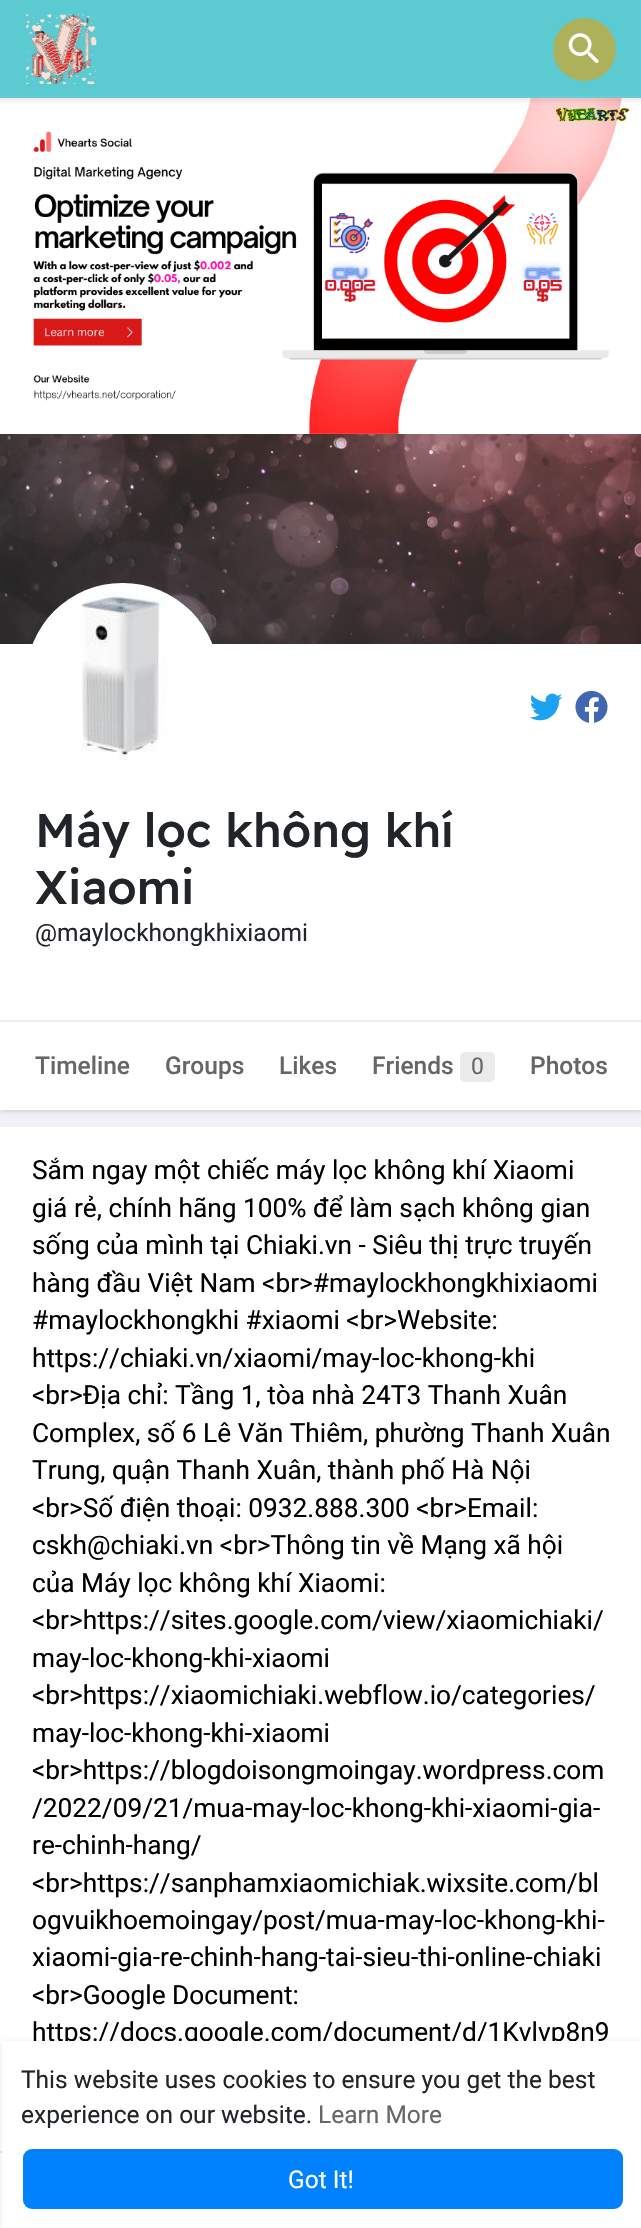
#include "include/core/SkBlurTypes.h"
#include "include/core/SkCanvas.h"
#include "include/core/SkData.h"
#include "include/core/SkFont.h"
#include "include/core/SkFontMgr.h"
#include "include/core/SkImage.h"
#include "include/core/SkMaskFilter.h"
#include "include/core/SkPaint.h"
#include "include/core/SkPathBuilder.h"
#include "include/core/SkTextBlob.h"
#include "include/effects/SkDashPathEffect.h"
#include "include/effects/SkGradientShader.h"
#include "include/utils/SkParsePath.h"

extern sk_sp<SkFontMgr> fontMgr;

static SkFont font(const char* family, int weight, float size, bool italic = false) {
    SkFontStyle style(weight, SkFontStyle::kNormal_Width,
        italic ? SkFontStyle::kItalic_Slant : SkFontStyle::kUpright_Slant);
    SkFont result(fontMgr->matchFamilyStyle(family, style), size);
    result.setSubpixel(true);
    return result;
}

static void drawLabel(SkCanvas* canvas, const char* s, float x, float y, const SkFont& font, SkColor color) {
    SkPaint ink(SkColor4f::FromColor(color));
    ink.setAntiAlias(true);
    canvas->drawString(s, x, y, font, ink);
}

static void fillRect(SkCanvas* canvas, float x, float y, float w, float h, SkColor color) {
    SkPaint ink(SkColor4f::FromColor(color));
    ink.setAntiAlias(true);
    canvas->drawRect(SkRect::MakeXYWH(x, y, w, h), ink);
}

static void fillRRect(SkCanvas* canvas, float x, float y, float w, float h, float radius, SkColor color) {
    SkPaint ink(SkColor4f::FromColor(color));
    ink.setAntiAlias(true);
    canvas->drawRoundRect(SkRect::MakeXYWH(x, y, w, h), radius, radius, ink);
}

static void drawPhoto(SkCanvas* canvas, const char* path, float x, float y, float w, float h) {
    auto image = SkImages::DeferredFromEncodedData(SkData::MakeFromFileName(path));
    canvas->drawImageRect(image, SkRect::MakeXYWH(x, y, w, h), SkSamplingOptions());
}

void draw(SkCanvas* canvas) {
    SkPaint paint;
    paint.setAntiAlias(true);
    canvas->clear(0xFFF0F2F5);
    fillRect(canvas, 0, 0, 641, 98, 0xFF5CCAD1);
    drawPhoto(canvas, "assets/img1.png", 26, 14, 71, 70);
    paint.setColor(0xFFADB15B);
    canvas->drawCircle(584.5f, 49.5f, 31.5f, paint);
    drawPhoto(canvas, "assets/img2.png", 568, 33, 31, 31);
    drawPhoto(canvas, "assets/img4.png", 0, 98, 641, 336);
    drawPhoto(canvas, "assets/img3.png", 0, 96, 641, 7);
    drawPhoto(canvas, "assets/img5.png", 0, 434, 641, 210);
    paint.setColor(0x0F000000);
    paint.setMaskFilter(SkMaskFilter::MakeBlur(kNormal_SkBlurStyle, 2));
    canvas->drawRect(SkRect::MakeXYWH(0, 646, 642, 465), paint);
    paint.setMaskFilter(nullptr);
    paint.setColor(0x1A000000);
    paint.setMaskFilter(SkMaskFilter::MakeBlur(kNormal_SkBlurStyle, 2.5f));
    canvas->drawRect(SkRect::MakeXYWH(0, 646, 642, 465), paint);
    paint.setMaskFilter(nullptr);
    fillRect(canvas, 0, 644, 641, 466, 0xFFFFFFFF);
    fillRRect(canvas, 26, 583, 193, 192, 96, 0xFFFFFFFF);
    drawPhoto(canvas, "assets/img6.png", 81, 592, 86, 169);
    drawPhoto(canvas, "assets/img7.png", 529, 693, 34, 28);
    drawPhoto(canvas, "assets/img8.png", 575, 690, 33, 33);
    SkFont font1 = font("Readex Pro", 500, 47.25f);
    drawLabel(canvas, "Máy lọc không khí", 35, 847, font1, 0xFF212529);
    drawLabel(canvas, "Xiaomi", 35, 904, font1, 0xFF212529);
    SkFont font2 = font("Roboto", 400, 24.5f);
    drawLabel(canvas, "@maylockhongkhixiaomi", 35, 941, font2, 0xFF212529);
    fillRect(canvas, 0, 1020, 641, 2, 0xFFEEEEEE);
    SkFont font3 = font("Roboto", 500, 24.5f);
    drawLabel(canvas, "Timeline", 35, 1074, font3, 0xFF666666);
    drawLabel(canvas, "Groups", 165, 1074, font3, 0xFF666666);
    drawLabel(canvas, "Likes", 279, 1074, font3, 0xFF666666);
    drawLabel(canvas, "Friends", 372, 1074, font3, 0xFF666666);
    fillRRect(canvas, 460, 1052, 35, 30, 5, 0xFFEBEBEB);
    SkFont font4 = font("Roboto", 400, 23);
    drawLabel(canvas, "0", 471, 1074, font4, 0xFF666666);
    drawLabel(canvas, "Photos", 530, 1074, font3, 0xFF666666);
    fillRect(canvas, 0, 1127, 641, 1024, 0xFFFFFFFF);
    SkFont font5 = font("Roboto", 400, 26.25f);
    drawLabel(canvas, "Sắm ngay một chiếc máy lọc không khí Xiaomi", 32, 1179, font5, 0xFF000000);
    drawLabel(canvas, "giá rẻ, chính hãng 100% để làm sạch không gian", 32, 1217, font5, 0xFF000000);
    drawLabel(canvas, "sống của mình tại Chiaki.vn - Siêu thị trực truyến", 32, 1254, font5, 0xFF000000);
    drawLabel(canvas, "hàng đầu Việt Nam <br>#maylockhongkhixiaomi", 32, 1292, font5, 0xFF000000);
    drawLabel(canvas, "#maylockhongkhi #xiaomi <br>Website:", 32, 1329, font5, 0xFF000000);
    drawLabel(canvas, "https://chiaki.vn/xiaomi/may-loc-khong-khi", 32, 1367, font5, 0xFF000000);
    drawLabel(canvas, "<br>Địa chỉ: Tầng 1, tòa nhà 24T3 Thanh Xuân", 32, 1404, font5, 0xFF000000);
    drawLabel(canvas, "Complex, số 6 Lê Văn Thiêm, phường Thanh Xuân", 32, 1442, font5, 0xFF000000);
    drawLabel(canvas, "Trung, quận Thanh Xuân, thành phố Hà Nội", 32, 1479, font5, 0xFF000000);
    drawLabel(canvas, "<br>Số điện thoại: 0932.888.300 <br>Email:", 32, 1517, font5, 0xFF000000);
    drawLabel(canvas, "cskh@chiaki.vn <br>Thông tin về Mạng xã hội", 32, 1554, font5, 0xFF000000);
    drawLabel(canvas, "của Máy lọc không khí Xiaomi:", 32, 1592, font5, 0xFF000000);
    drawLabel(canvas, "<br>https://sites.google.com/view/xiaomichiaki/", 32, 1629, font5, 0xFF000000);
    drawLabel(canvas, "may-loc-khong-khi-xiaomi", 32, 1667, font5, 0xFF000000);
    drawLabel(canvas, "<br>https://xiaomichiaki.webflow.io/categories/", 32, 1704, font5, 0xFF000000);
    drawLabel(canvas, "may-loc-khong-khi-xiaomi", 32, 1742, font5, 0xFF000000);
    drawLabel(canvas, "<br>https://blogdoisongmoingay.wordpress.com", 32, 1779, font5, 0xFF000000);
    drawLabel(canvas, "/2022/09/21/mua-may-loc-khong-khi-xiaomi-gia-", 32, 1817, font5, 0xFF000000);
    drawLabel(canvas, "re-chinh-hang/", 32, 1854, font5, 0xFF000000);
    drawLabel(canvas, "<br>https://sanphamxiaomichiak.wixsite.com/bl", 32, 1892, font5, 0xFF000000);
    drawLabel(canvas, "ogvuikhoemoingay/post/mua-may-loc-khong-khi-", 32, 1929, font5, 0xFF000000);
    drawLabel(canvas, "xiaomi-gia-re-chinh-hang-tai-sieu-thi-online-chiaki", 32, 1966, font5, 0xFF000000);
    drawLabel(canvas, "<br>Google Document:", 32, 2004, font5, 0xFF000000);
    drawLabel(canvas, "https://docs.google.com/document/d/1Kvlvp8n9", 32, 2041, font5, 0xFF000000);
    fillRect(canvas, 0, 2153, 2, 75, 0xFFFFFFFF);
    fillRect(canvas, 0, 2151, 2, 2, 0xFFE6E6E6);
    paint.setMaskFilter(SkMaskFilter::MakeBlur(kNormal_SkBlurStyle, 2.5f));
    canvas->drawRect(SkRect::MakeXYWH(2, 2042, 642, 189), paint);
    paint.setMaskFilter(nullptr);
    fillRect(canvas, 2, 2041, 639, 187, 0xFFFFFFFF);
    drawLabel(canvas, "This website uses cookies to ensure you get the best", 21, 2088, font2, 0xFF212529);
    drawLabel(canvas, "experience on our website.", 21, 2123, font2, 0xFF212529);
    drawLabel(canvas, "Learn More", 318, 2123, font2, 0xFF666666);
    fillRRect(canvas, 23, 2149, 600, 60, 9, 0xFF0082FF);
    drawLabel(canvas, "Got It!", 288, 2188, font2, 0xFFFFFFFF);
}
